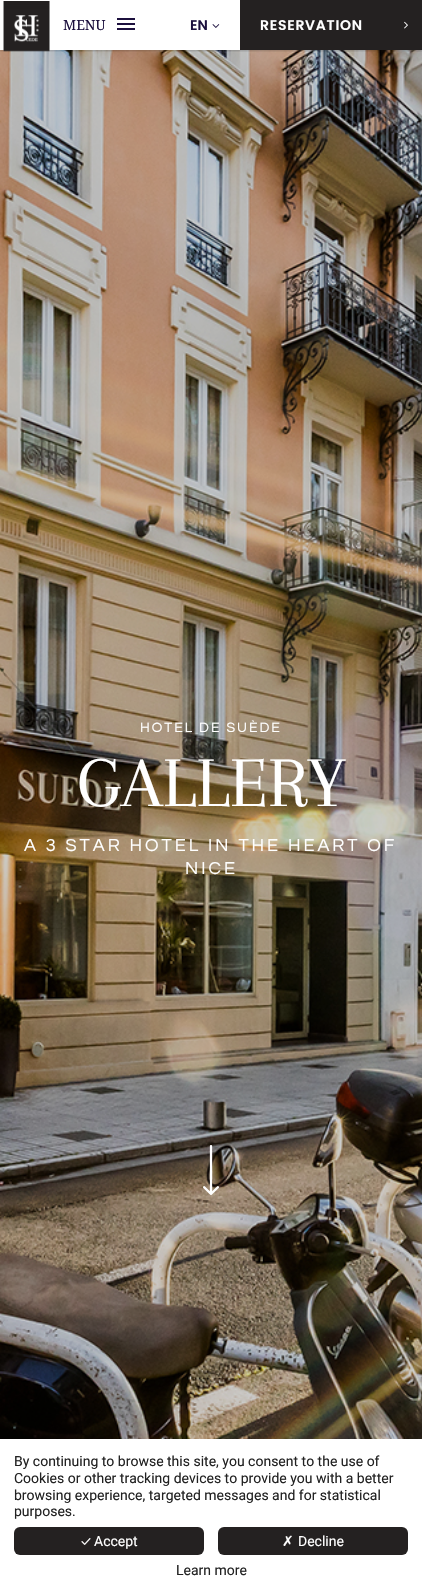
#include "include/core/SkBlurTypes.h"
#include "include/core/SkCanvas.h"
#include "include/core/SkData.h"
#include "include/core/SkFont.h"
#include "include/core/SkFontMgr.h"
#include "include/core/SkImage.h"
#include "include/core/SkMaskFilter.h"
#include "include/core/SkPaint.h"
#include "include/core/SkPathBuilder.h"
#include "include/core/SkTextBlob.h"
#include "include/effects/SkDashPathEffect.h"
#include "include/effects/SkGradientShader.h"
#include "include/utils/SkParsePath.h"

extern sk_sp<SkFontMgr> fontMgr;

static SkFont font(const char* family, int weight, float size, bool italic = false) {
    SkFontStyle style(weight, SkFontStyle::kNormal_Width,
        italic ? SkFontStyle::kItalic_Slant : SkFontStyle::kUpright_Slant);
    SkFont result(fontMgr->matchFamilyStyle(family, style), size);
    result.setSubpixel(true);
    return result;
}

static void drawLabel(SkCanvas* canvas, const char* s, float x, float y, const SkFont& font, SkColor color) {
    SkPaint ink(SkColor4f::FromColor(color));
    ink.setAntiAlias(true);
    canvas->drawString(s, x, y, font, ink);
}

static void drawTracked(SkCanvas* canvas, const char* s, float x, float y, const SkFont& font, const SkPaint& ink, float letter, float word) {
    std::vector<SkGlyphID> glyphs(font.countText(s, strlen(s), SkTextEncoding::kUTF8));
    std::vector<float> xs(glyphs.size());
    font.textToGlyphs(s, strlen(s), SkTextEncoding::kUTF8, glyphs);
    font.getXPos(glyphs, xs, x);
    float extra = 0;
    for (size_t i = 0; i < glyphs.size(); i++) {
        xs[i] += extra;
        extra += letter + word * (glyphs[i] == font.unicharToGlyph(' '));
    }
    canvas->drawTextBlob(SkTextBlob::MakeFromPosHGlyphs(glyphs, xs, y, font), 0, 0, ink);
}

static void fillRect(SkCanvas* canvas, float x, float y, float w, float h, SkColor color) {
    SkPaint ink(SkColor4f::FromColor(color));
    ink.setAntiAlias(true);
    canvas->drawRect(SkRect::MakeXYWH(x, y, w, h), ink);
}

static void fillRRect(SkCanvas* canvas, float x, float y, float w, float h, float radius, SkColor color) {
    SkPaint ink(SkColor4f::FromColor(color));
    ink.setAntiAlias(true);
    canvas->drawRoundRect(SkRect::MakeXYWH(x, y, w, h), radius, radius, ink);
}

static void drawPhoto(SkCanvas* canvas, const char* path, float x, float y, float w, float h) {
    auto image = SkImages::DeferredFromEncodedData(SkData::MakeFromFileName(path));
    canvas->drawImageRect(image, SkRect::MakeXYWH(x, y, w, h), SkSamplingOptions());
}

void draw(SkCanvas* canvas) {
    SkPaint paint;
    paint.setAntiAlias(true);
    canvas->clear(0xFFFFFFFF);
    drawPhoto(canvas, "assets/img4.png", 0, 50, 422, 1389);
    canvas->save();
    canvas->clipRect(SkRect::MakeXYWH(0, 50, 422, 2));
    paint.setColor(0x33000000);
    paint.setMaskFilter(SkMaskFilter::MakeBlur(kNormal_SkBlurStyle, 1));
    canvas->drawRect(SkRect::MakeXYWH(0, 1, 422, 50), paint);
    paint.setMaskFilter(nullptr);
    canvas->restore();
    drawPhoto(canvas, "assets/img1.png", 3, 1, 47, 51);
    SkFont font1 = font("Noto Serif", 400, 14);
    drawLabel(canvas, "MENU", 63, 30, font1, 0xFF1C103E);
    fillRect(canvas, 117, 23, 18, 2, 0xFF1C103E);
    fillRect(canvas, 117, 18, 18, 2, 0xFF1C103E);
    fillRect(canvas, 117, 28, 18, 2, 0xFF1C103E);
    SkFont font2 = font("Poppins", 600, 14);
    drawLabel(canvas, "EN", 190, 30, font2, 0xFF1C103E);
    drawPhoto(canvas, "assets/img2.png", 212, 24, 8, 4);
    fillRect(canvas, 240, 0, 182, 50, 0xFF242121);
    paint.setColor(0xFFFFFFFF);
    drawTracked(canvas, "RESERVATION", 260, 30, font2, paint, 0.75f, 0);
    drawPhoto(canvas, "assets/img3.png", 404, 21, 4, 8);
    SkFont font3 = font("Questrial", 400, 14);
    drawTracked(canvas, "HOTEL DE SUÈDE", 140, 732, font3, paint, 2, 0);
    SkFont font4 = font("Arapey", 400, 74);
    drawLabel(canvas, "GALLERY", 77, 806, font4, 0xFFFFFFFF);
    SkFont font5 = font("Questrial", 400, 18);
    drawTracked(canvas, "A 3 STAR HOTEL IN THE HEART OF", 24, 851, font5, paint, 3, 0);
    drawTracked(canvas, "NICE", 185, 874, font5, paint, 3, 0);
    drawPhoto(canvas, "assets/img5.png", 203, 1145, 16, 50);
    SkFont font6 = font("Roboto", 400, 14);
    drawLabel(canvas, "By continuing to browse this site, you consent to the use of", 14, 1466, font6, 0xFF222222);
    drawLabel(canvas, "Cookies or other tracking devices to provide you with a better", 14, 1483, font6, 0xFF222222);
    drawLabel(canvas, "browsing experience, targeted messages and for statistical", 14, 1500, font6, 0xFF222222);
    drawLabel(canvas, "purposes.", 14, 1516, font6, 0xFF222222);
    fillRRect(canvas, 14, 1527, 190, 28, 6, 0xFF242121);
    SkFont font7 = font("Ubuntu", 400, 14);
    drawLabel(canvas, "✓", 81, 1546, font7, 0xFFFFFFFF);
    drawLabel(canvas, "Accept", 94, 1546, font6, 0xFFFFFFFF);
    fillRRect(canvas, 218, 1527, 190, 28, 6, 0xFF242121);
    SkFont font8 = font("DejaVu Sans", 400, 14);
    drawLabel(canvas, "✗", 282, 1546, font8, 0xFFFFFFFF);
    drawLabel(canvas, "Decline", 298, 1546, font6, 0xFFFFFFFF);
    drawLabel(canvas, "Learn more", 176, 1575, font6, 0xFF222222);
}
